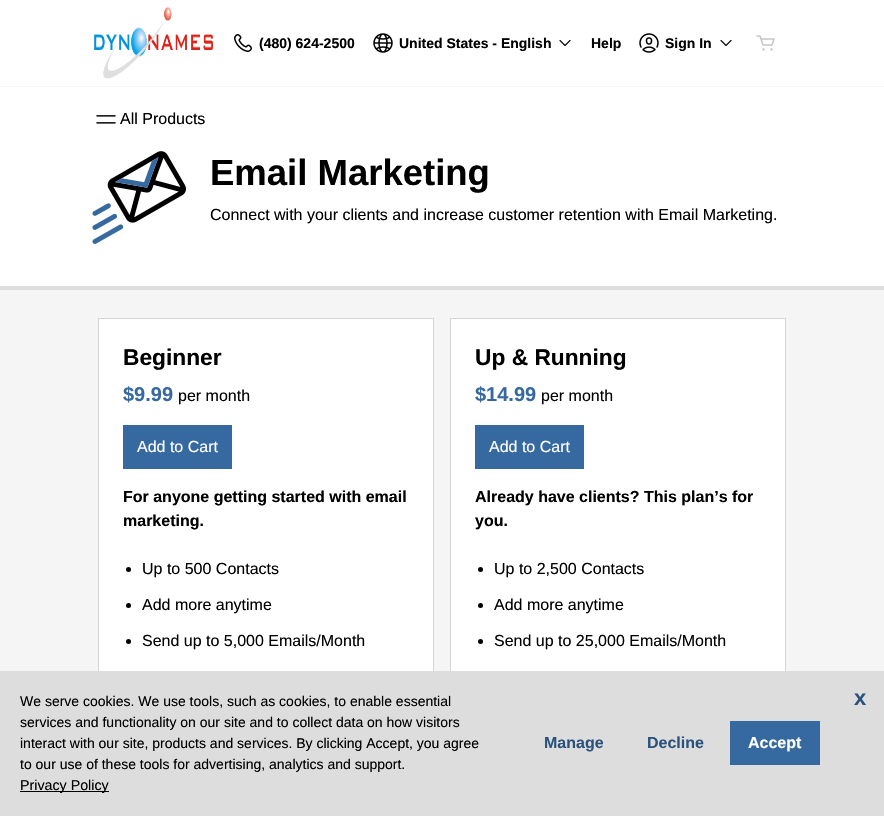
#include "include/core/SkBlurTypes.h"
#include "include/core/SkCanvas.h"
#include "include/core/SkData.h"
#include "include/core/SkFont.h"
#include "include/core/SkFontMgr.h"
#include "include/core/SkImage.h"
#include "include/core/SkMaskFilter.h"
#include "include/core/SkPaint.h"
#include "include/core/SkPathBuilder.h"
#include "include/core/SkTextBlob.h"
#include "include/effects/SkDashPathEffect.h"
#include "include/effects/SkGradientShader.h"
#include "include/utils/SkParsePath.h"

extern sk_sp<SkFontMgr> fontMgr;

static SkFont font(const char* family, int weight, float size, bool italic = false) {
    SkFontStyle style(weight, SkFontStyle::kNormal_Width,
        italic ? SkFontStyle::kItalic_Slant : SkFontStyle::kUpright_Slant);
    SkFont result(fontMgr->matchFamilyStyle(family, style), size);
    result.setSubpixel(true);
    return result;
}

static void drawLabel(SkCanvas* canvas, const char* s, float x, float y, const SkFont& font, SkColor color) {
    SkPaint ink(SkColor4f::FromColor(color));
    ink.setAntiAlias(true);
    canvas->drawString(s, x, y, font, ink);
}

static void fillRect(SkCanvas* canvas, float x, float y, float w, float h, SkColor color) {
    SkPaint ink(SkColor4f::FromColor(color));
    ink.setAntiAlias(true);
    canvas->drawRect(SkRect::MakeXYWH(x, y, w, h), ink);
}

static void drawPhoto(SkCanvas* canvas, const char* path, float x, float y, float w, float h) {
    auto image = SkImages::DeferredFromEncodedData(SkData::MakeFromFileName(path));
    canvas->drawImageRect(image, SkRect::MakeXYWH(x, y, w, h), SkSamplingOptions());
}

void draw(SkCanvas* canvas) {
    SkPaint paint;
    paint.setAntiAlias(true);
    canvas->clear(0xFFF5F5F5);
    fillRect(canvas, 0, 0, 884, 86, 0xFFFFFFFF);
    drawPhoto(canvas, "assets/img1.png", 94, 6, 119, 73);
    drawPhoto(canvas, "assets/img2.png", 234, 34, 18, 18);
    SkFont font1 = font("Liberation Sans", 700, 14);
    drawLabel(canvas, "(480) 624-2500", 259, 48, font1, 0xFF000000);
    drawPhoto(canvas, "assets/img3.png", 373, 33, 20, 20);
    drawLabel(canvas, "United States - English", 399, 48, font1, 0xFF000000);
    drawPhoto(canvas, "assets/img4.png", 559, 40, 12, 6);
    drawLabel(canvas, "Help", 591, 48, font1, 0xFF000000);
    drawPhoto(canvas, "assets/img5.png", 639, 33, 20, 20);
    drawLabel(canvas, "Sign In", 665, 48, font1, 0xFF000000);
    drawPhoto(canvas, "assets/img4.png", 720, 40, 12, 6);
    drawPhoto(canvas, "assets/img6.png", 756, 35, 19, 16);
    fillRect(canvas, 0, 87, 884, 199, 0xFFFFFFFF);
    drawPhoto(canvas, "assets/img7.png", 96, 115, 20, 9);
    SkFont font2 = font("Liberation Sans", 400, 16);
    drawLabel(canvas, "All Products", 120, 124, font2, 0xFF000000);
    fillRect(canvas, 0, 286, 884, 4, 0xFFDDDDDD);
    drawPhoto(canvas, "assets/img8.png", 92, 151, 94, 93);
    SkFont font3 = font("Liberation Sans", 700, 36.5f);
    drawLabel(canvas, "Email Marketing", 210, 185, font3, 0xFF000000);
    drawLabel(canvas, "Connect with your clients and increase customer retention with Email Marketing.", 210, 220, font2, 0xFF000000);
    fillRect(canvas, 99, 319, 334, 352, 0xFFFFFFFF);
    paint.setStroke(true);
    paint.setStrokeWidth(1);
    paint.setColor(0xFFD6D6D6);
    canvas->drawRect(SkRect::MakeXYWH(98.5f, 318.5f, 335, 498), paint);
    SkFont font4 = font("Liberation Sans", 700, 22.75f);
    drawLabel(canvas, "Beginner", 123, 365, font4, 0xFF000000);
    SkFont font5 = font("Liberation Sans", 700, 20);
    drawLabel(canvas, "$9.99", 123, 401, font5, 0xFF36699F);
    drawLabel(canvas, "per month", 178, 401, font2, 0xFF000000);
    fillRect(canvas, 123, 425, 109, 44, 0xFF36699F);
    drawLabel(canvas, "Add to Cart", 137, 452, font2, 0xFFFFFFFF);
    SkFont font6 = font("Liberation Sans", 700, 16);
    drawLabel(canvas, "For anyone getting started with email", 123, 502, font6, 0xFF000000);
    drawLabel(canvas, "marketing.", 123, 526, font6, 0xFF000000);
    paint.setStroke(false);
    paint.setColor(0xFF000000);
    canvas->drawCircle(128.5f, 569.5f, 2.5f, paint);
    drawLabel(canvas, "Up to 500 Contacts", 142, 574, font2, 0xFF000000);
    canvas->drawCircle(128.5f, 605.5f, 2.5f, paint);
    drawLabel(canvas, "Add more anytime", 142, 610, font2, 0xFF000000);
    canvas->drawCircle(128.5f, 641.5f, 2.5f, paint);
    drawLabel(canvas, "Send up to 5,000 Emails/Month", 142, 646, font2, 0xFF000000);
    fillRect(canvas, 451, 319, 334, 352, 0xFFFFFFFF);
    paint.setStroke(true);
    paint.setColor(0xFFD6D6D6);
    canvas->drawRect(SkRect::MakeXYWH(450.5f, 318.5f, 335, 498), paint);
    drawLabel(canvas, "Up & Running", 475, 365, font4, 0xFF000000);
    drawLabel(canvas, "$14.99", 475, 401, font5, 0xFF36699F);
    drawLabel(canvas, "per month", 541, 401, font2, 0xFF000000);
    fillRect(canvas, 475, 425, 109, 44, 0xFF36699F);
    drawLabel(canvas, "Add to Cart", 489, 452, font2, 0xFFFFFFFF);
    drawLabel(canvas, "Already have clients? This plan’s for", 475, 502, font6, 0xFF000000);
    drawLabel(canvas, "you.", 475, 526, font6, 0xFF000000);
    paint.setStroke(false);
    paint.setColor(0xFF000000);
    canvas->drawCircle(480.5f, 569.5f, 2.5f, paint);
    drawLabel(canvas, "Up to 2,500 Contacts", 494, 574, font2, 0xFF000000);
    canvas->drawCircle(480.5f, 605.5f, 2.5f, paint);
    drawLabel(canvas, "Add more anytime", 494, 610, font2, 0xFF000000);
    canvas->drawCircle(480.5f, 641.5f, 2.5f, paint);
    drawLabel(canvas, "Send up to 25,000 Emails/Month", 494, 646, font2, 0xFF000000);
    fillRect(canvas, 0, 671, 884, 145, 0xFFDDDDDD);
    SkFont font7 = font("Liberation Sans", 400, 14);
    drawLabel(canvas, "We serve cookies. We use tools, such as cookies, to enable essential", 20, 706, font7, 0xFF000000);
    drawLabel(canvas, "services and functionality on our site and to collect data on how visitors", 20, 727, font7, 0xFF000000);
    drawLabel(canvas, "interact with our site, products and services. By clicking Accept, you agree", 20, 748, font7, 0xFF000000);
    drawLabel(canvas, "to our use of these tools for advertising, analytics and support.", 20, 769, font7, 0xFF000000);
    fillRect(canvas, 20, 791, 89, 1, 0xFF000000);
    SkFont font8 = font("Liberation Sans", 400, 14.25f);
    drawLabel(canvas, "Privacy Policy", 20, 790, font8, 0xFF000000);
    drawLabel(canvas, "Manage", 544, 748, font6, 0xFF2A527D);
    drawLabel(canvas, "Decline", 647, 748, font6, 0xFF2A527D);
    fillRect(canvas, 730, 721, 90, 44, 0xFF36699F);
    drawLabel(canvas, "Accept", 748, 748, font6, 0xFFFFFFFF);
    SkFont font9 = font("Liberation Sans", 700, 22);
    drawLabel(canvas, "x", 854, 705, font9, 0xFF2A527D);
}
